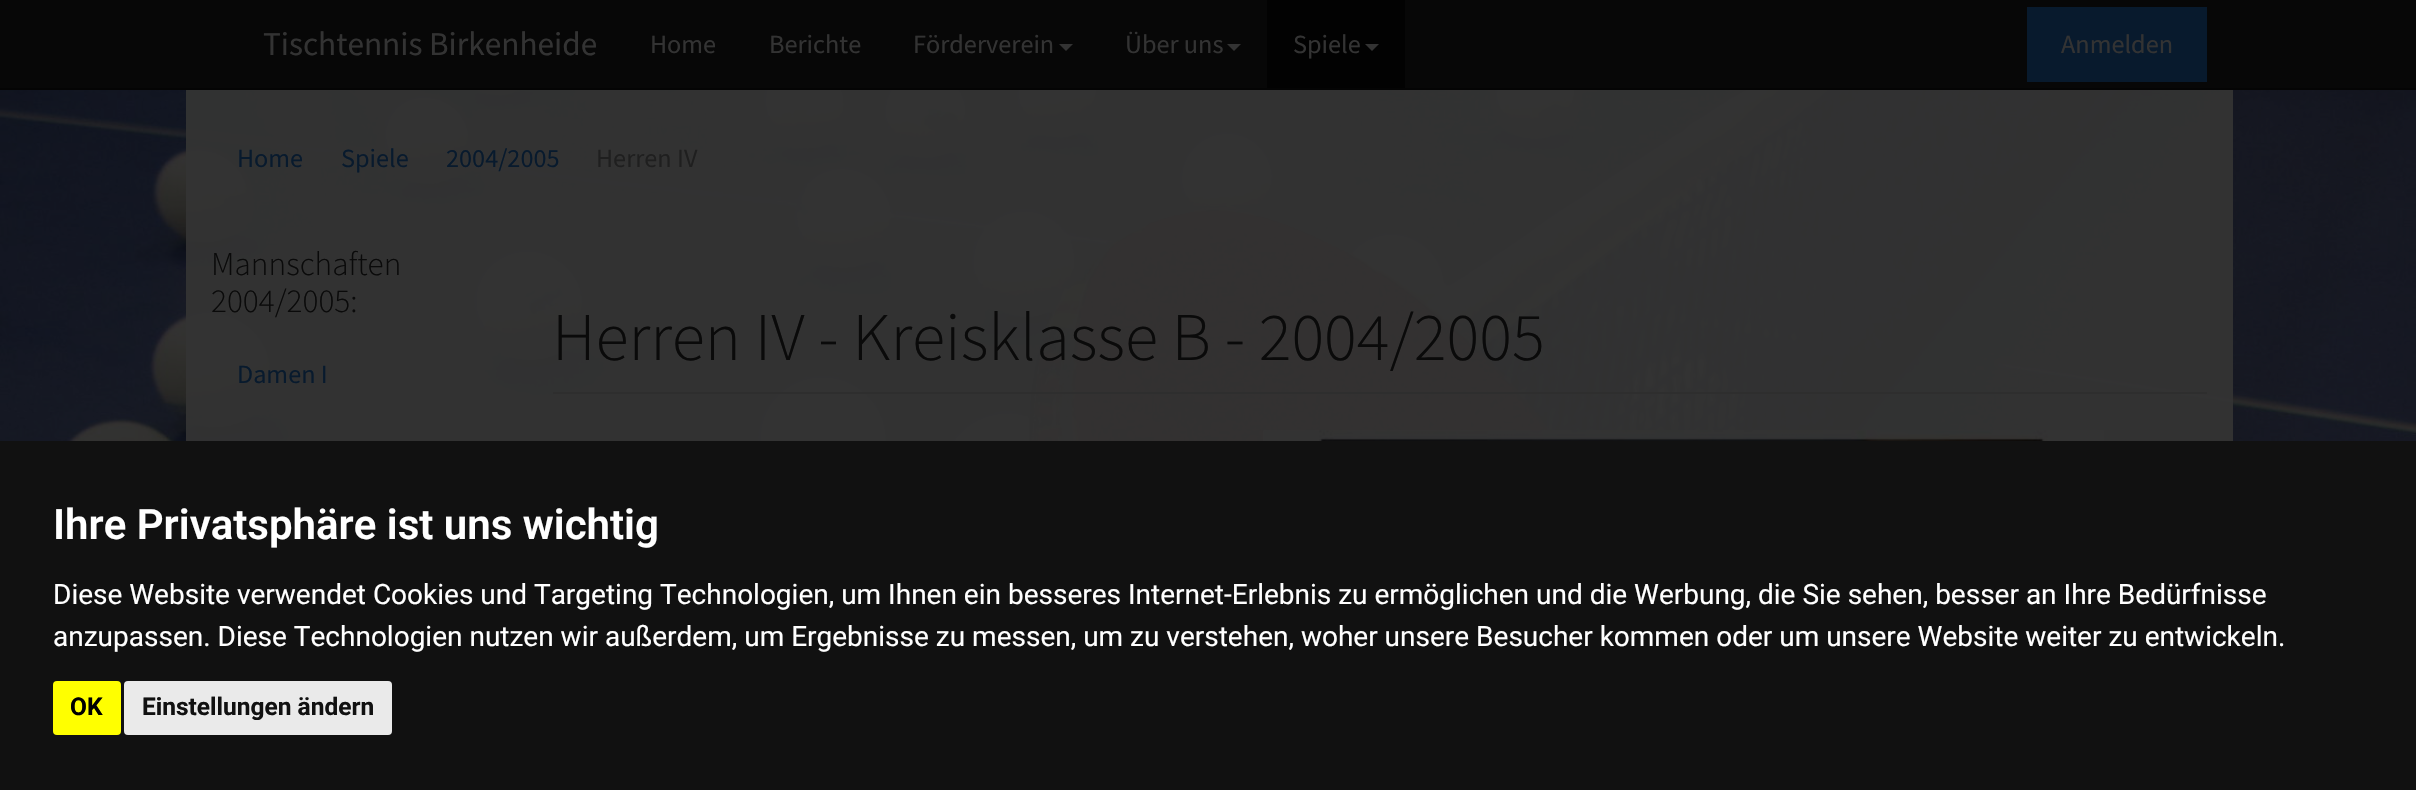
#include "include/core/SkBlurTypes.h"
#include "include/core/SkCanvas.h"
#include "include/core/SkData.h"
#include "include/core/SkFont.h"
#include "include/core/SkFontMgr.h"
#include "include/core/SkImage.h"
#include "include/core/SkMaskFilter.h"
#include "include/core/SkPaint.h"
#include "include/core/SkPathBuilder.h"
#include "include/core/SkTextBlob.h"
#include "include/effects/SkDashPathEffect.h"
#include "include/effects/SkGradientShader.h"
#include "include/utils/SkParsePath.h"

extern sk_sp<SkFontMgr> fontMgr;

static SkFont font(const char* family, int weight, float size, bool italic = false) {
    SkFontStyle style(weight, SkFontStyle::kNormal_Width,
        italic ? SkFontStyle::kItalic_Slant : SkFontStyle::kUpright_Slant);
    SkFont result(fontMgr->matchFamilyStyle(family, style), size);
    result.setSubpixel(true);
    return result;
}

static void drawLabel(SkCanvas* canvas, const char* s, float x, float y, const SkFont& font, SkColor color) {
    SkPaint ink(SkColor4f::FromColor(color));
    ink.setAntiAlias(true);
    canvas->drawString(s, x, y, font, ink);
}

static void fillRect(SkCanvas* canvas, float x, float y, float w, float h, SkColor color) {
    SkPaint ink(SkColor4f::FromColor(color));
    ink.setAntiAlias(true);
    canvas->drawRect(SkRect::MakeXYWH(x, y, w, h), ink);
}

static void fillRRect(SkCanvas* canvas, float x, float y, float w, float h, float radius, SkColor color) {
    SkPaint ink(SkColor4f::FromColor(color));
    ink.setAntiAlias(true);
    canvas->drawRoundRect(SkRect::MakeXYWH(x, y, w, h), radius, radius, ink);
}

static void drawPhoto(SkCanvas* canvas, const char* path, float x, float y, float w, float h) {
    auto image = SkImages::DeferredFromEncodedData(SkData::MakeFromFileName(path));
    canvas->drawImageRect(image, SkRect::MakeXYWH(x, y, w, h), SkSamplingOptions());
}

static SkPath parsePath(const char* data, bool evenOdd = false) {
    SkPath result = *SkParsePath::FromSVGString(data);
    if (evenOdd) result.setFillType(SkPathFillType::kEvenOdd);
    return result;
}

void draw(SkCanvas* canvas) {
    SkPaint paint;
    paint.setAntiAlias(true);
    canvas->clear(0xFFFFFFFF);
    drawPhoto(canvas, "assets/img1.png", 0, 90, 2416, 351);
    fillRect(canvas, 0, 0, 2416, 88, 0xFF070707);
    fillRect(canvas, 0, 88, 2416, 2, 0xFF040404);
    SkFont font1 = font("Source Sans Pro", 400, 33.25f);
    drawLabel(canvas, "Tischtennis Birkenheide", 263, 55, font1, 0xFF333333);
    SkFont font2 = font("Source Sans Pro", 400, 26.25f);
    drawLabel(canvas, "Home", 650, 53, font2, 0xFF333333);
    drawLabel(canvas, "Berichte", 769, 53, font2, 0xFF333333);
    drawLabel(canvas, "Förderverein", 913, 53, font2, 0xFF333333);
    paint.setColor(0xFF333333);
    canvas->drawPath(parsePath("M1059 44H1073L1066 51Z"), paint);
    drawLabel(canvas, "Über uns", 1125, 53, font2, 0xFF333333);
    canvas->drawPath(parsePath("M1227 44H1241L1234 51Z"), paint);
    fillRect(canvas, 1267, 0, 138, 88, 0xFF020202);
    drawLabel(canvas, "Spiele", 1293, 53, font2, 0xFF333333);
    canvas->drawPath(parsePath("M1365 44H1379L1372 51Z"), paint);
    fillRect(canvas, 2027, 7, 180, 75, 0xFF081A2D);
    drawLabel(canvas, "Anmelden", 2061, 53, font2, 0xFF333333);
    fillRect(canvas, 186, 90, 2047, 351, 0xF2333333);
    drawLabel(canvas, "Home", 237, 167, font2, 0xFF081A2D);
    drawLabel(canvas, "Spiele", 341, 167, font2, 0xFF081A2D);
    drawLabel(canvas, "2004/2005", 446, 167, font2, 0xFF081A2D);
    drawLabel(canvas, "Herren IV", 596, 167, font2, 0xFF1F1F1F);
    SkFont font3 = font("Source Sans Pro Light", 300, 33.25f);
    drawLabel(canvas, "Mannschaften", 211, 275, font3, 0xFF0A0A0A);
    drawLabel(canvas, "2004/2005:", 211, 312, font3, 0xFF0A0A0A);
    drawLabel(canvas, "Damen I", 237, 383, font2, 0xFF081A2D);
    fillRect(canvas, 553, 392, 1654, 2, 0xFF2E2E2E);
    SkFont font4 = font("Source Sans Pro Light", 300, 68.25f);
    drawLabel(canvas, "Herren IV - Kreisklasse B - 2004/2005", 552, 360, font4, 0xFF0A0A0A);
    drawPhoto(canvas, "assets/img2.png", 1263, 430, 841, 11);
    fillRect(canvas, 0, 441, 2416, 349, 0xFF111111);
    SkFont font5 = font("Roboto", 600, 42);
    drawLabel(canvas, "Ihre Privatsphäre ist uns wichtig", 53, 539, font5, 0xFFFFFFFF);
    SkFont font6 = font("Roboto", 400, 28);
    drawLabel(canvas, "Diese Website verwendet Cookies und Targeting Technologien, um Ihnen ein besseres Internet-Erlebnis zu ermöglichen und die Werbung, die Sie sehen, besser an Ihre Bedürfnisse", 53, 604, font6, 0xFFFFFFFF);
    drawLabel(canvas, "anzupassen. Diese Technologien nutzen wir außerdem, um Ergebnisse zu messen, um zu verstehen, woher unsere Besucher kommen oder um unsere Website weiter zu entwickeln.", 53, 646, font6, 0xFFFFFFFF);
    fillRRect(canvas, 53, 681, 68, 54, 4, 0xFFFFFF00);
    SkFont font7 = font("Roboto", 700, 24.5f);
    drawLabel(canvas, "OK", 70, 715, font7, 0xFF000000);
    fillRRect(canvas, 124, 681, 268, 54, 4, 0xFFEAEAEA);
    drawLabel(canvas, "Einstellungen ändern", 142, 715, font7, 0xFF111111);
}
